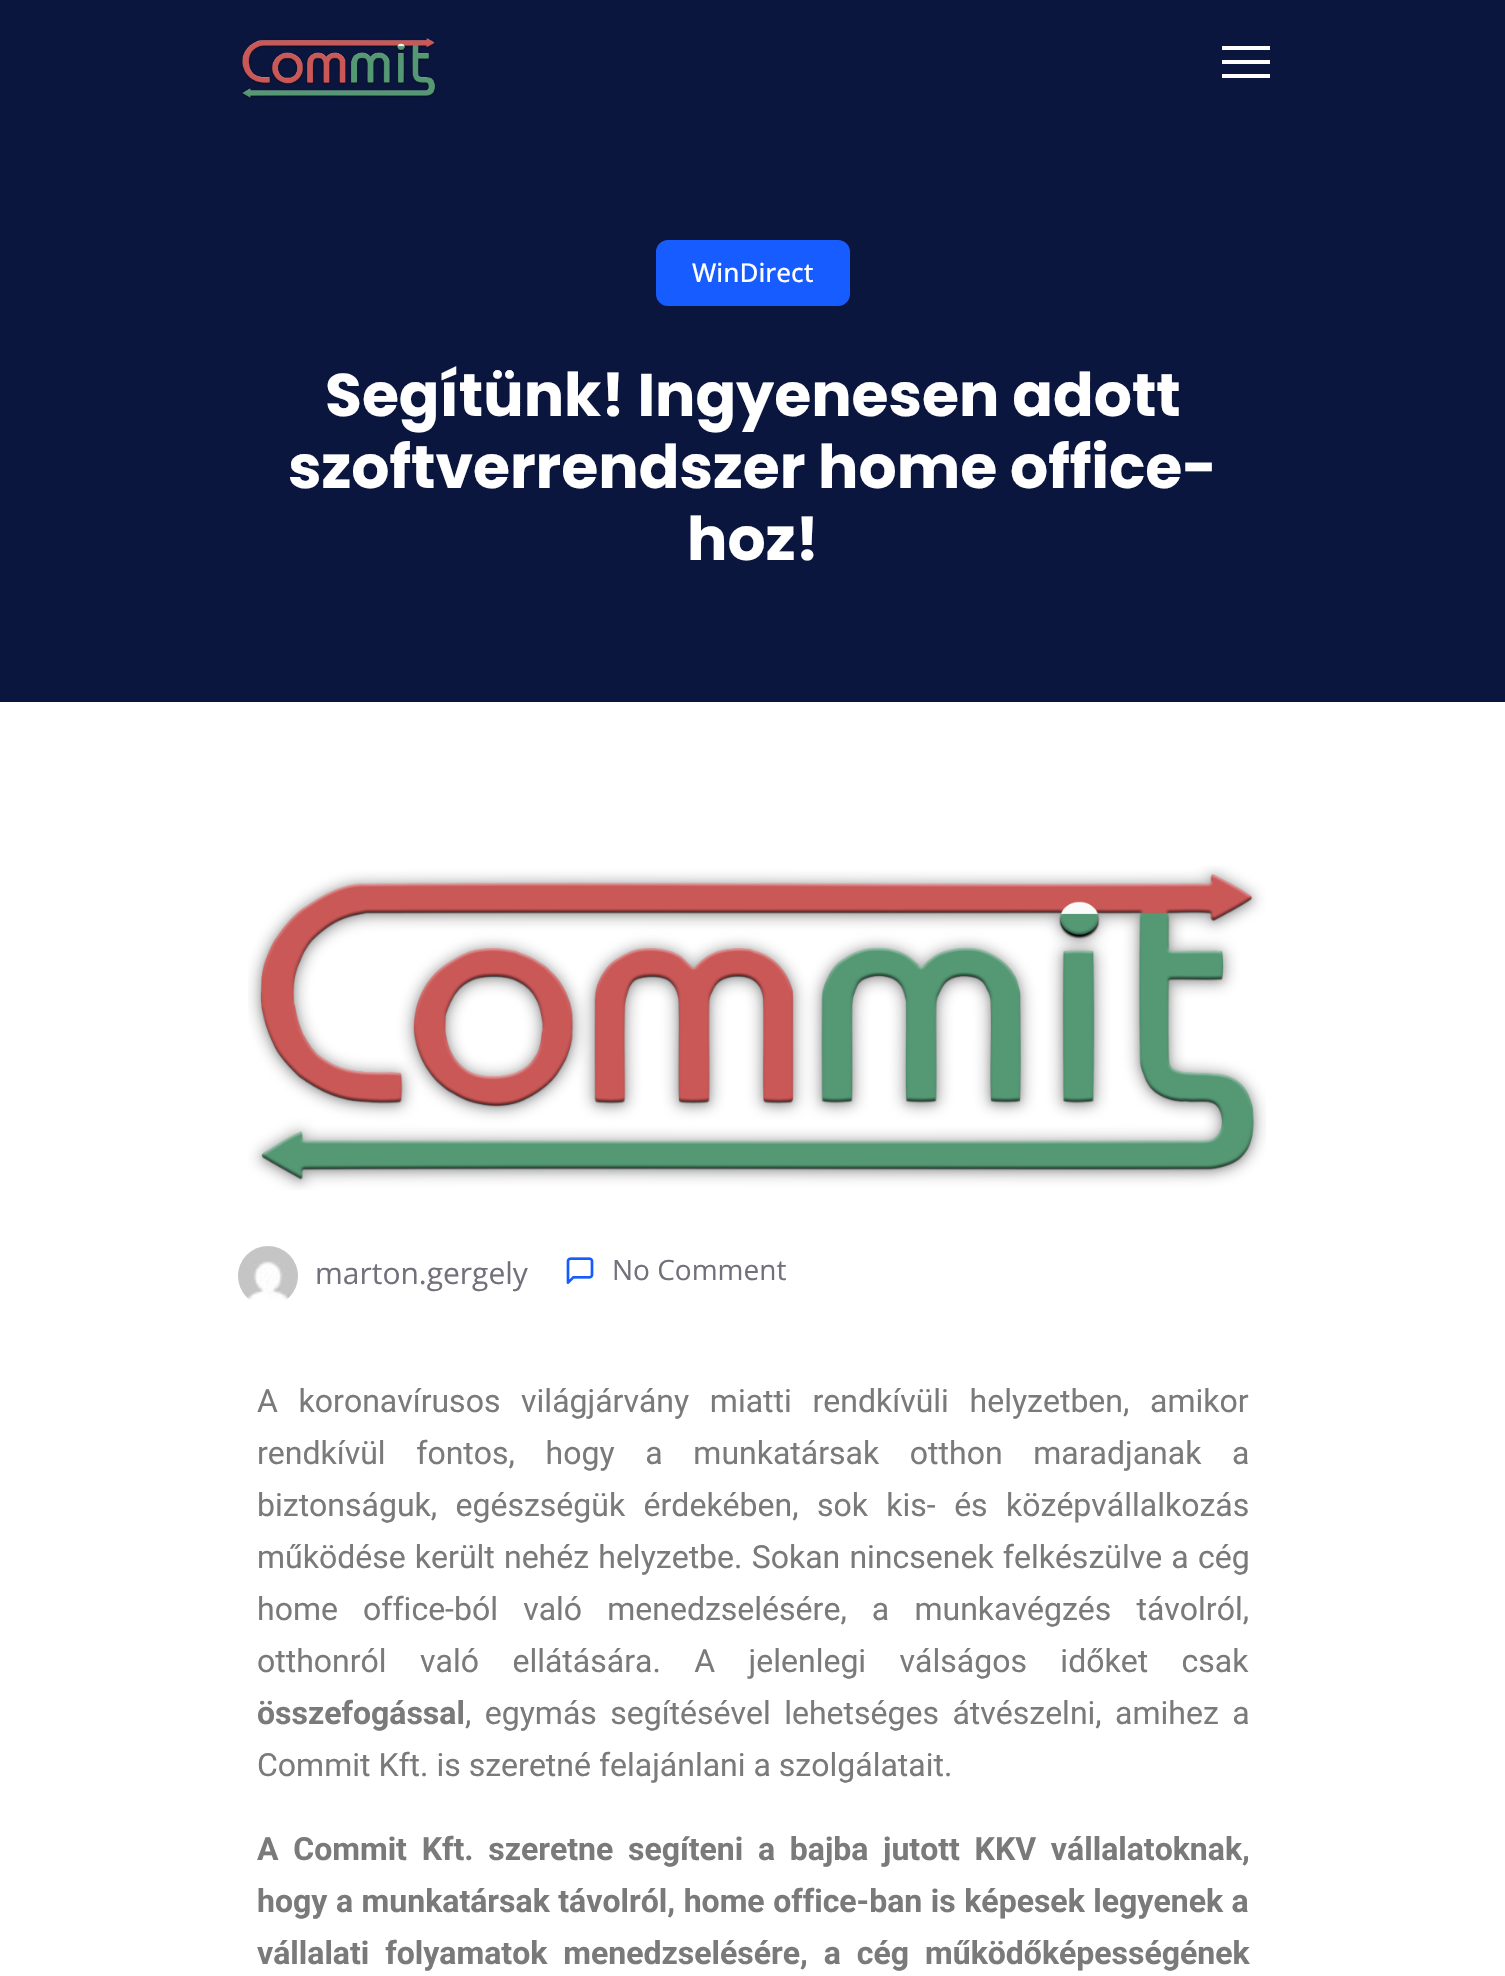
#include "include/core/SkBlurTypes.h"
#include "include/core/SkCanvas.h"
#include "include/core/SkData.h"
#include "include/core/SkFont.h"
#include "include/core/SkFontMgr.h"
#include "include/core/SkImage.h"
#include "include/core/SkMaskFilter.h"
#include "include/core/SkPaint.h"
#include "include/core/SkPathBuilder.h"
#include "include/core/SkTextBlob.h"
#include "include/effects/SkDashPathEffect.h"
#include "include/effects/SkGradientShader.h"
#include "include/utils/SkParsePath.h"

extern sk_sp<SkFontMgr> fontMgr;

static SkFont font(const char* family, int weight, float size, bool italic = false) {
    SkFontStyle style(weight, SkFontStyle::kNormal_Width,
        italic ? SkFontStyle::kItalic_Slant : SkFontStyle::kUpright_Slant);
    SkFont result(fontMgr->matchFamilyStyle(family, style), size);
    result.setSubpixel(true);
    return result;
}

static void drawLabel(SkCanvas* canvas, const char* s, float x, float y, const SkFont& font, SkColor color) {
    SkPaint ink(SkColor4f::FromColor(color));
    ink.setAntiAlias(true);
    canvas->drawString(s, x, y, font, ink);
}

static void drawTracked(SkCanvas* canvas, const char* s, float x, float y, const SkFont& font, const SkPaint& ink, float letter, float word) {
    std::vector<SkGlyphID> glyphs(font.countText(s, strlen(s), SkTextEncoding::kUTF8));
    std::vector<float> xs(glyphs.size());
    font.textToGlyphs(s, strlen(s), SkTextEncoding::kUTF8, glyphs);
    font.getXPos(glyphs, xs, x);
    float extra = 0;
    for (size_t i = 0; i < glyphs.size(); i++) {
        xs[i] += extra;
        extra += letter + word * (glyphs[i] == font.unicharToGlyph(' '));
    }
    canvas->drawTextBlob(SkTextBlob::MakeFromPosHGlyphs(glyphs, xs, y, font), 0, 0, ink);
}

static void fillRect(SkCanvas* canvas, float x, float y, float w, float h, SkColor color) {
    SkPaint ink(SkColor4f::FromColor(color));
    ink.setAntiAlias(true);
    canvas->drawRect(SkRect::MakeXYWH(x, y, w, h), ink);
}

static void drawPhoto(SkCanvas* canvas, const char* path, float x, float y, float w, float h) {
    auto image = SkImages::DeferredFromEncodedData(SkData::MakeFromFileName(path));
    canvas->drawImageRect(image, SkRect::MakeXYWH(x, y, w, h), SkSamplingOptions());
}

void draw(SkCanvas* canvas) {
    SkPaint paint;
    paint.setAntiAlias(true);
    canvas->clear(0xFFFFFFFF);
    fillRect(canvas, 0, 0, 1505, 702, 0xFF0B163F);
    drawPhoto(canvas, "assets/img1.png", 241, 38, 195, 61);
    fillRect(canvas, 1222, 46, 48, 4, 0xFFFFFFFF);
    fillRect(canvas, 1222, 60, 48, 4, 0xFFFFFFFF);
    fillRect(canvas, 1222, 74, 48, 4, 0xFFFFFFFF);
    paint.setColor(0xFF175CFF);
    canvas->drawRoundRect(SkRect::MakeXYWH(658, 242, 190, 62), 10, 10, paint);
    paint.setStroke(true);
    paint.setStrokeWidth(4);
    canvas->drawRoundRect(SkRect::MakeXYWH(658, 242, 190, 62), 10, 10, paint);
    SkFont font1 = font("Open Sans", 500, 26);
    drawLabel(canvas, "WinDirect", 692, 282, font1, 0xFFFFFFFF);
    SkFont font2 = font("Poppins", 700, 60);
    drawLabel(canvas, "Segítünk! Ingyenesen adott", 325, 416, font2, 0xFFFFFFFF);
    drawLabel(canvas, "szoftverrendszer home office-", 288, 488, font2, 0xFFFFFFFF);
    drawLabel(canvas, "hoz!", 687, 560, font2, 0xFFFFFFFF);
    drawPhoto(canvas, "assets/img2.png", 248, 866, 1018, 324);
    drawPhoto(canvas, "assets/img3.png", 238, 1246, 60, 54);
    SkFont font3 = font("Open Sans", 400, 30);
    drawLabel(canvas, "marton.gergely", 315, 1284, font3, 0xFF71717C);
    drawPhoto(canvas, "assets/img4.png", 566, 1257, 28, 27);
    SkFont font4 = font("Open Sans", 400, 28);
    drawLabel(canvas, "No Comment", 612, 1280, font4, 0xFF71717C);
    SkFont font5 = font("Roboto", 400, 32);
    paint.setStroke(false);
    paint.setColor(0xFF7A7A7A);
    drawTracked(canvas, "A koronavírusos világjárvány miatti rendkívüli helyzetben, amikor", 257, 1412, font5, paint, 0, 12.75f);
    drawTracked(canvas, "rendkívül fontos, hogy a munkatársak otthon maradjanak a", 257, 1464, font5, paint, 0, 22.75f);
    drawTracked(canvas, "biztonságuk, egészségük érdekében, sok kis- és középvállalkozás", 257, 1516, font5, paint, 0, 10.5f);
    drawTracked(canvas, "működése került nehéz helyzetbe. Sokan nincsenek felkészülve a cég", 257, 1568, font5, paint, 0, 1.25f);
    drawTracked(canvas, "home office-ból való menedzselésére, a munkavégzés távolról,", 257, 1620, font5, paint, 0, 17.25f);
    drawTracked(canvas, "otthonról való ellátására. A jelenlegi válságos időket csak", 257, 1672, font5, paint, 0, 25.5f);
    SkFont font6 = font("Roboto", 700, 32);
    drawLabel(canvas, "összefogással", 257, 1724, font6, 0xFF7A7A7A);
    drawTracked(canvas, ", egymás segítésével lehetséges átvészelni, amihez a", 465, 1724, font5, paint, 0, 5.5f);
    drawLabel(canvas, "Commit Kft. is szeretné felajánlani a szolgálatait.", 257, 1776, font5, 0xFF7A7A7A);
    drawTracked(canvas, "A Commit Kft. szeretne segíteni a bajba jutott KKV vállalatoknak,", 257, 1860, font6, paint, 0, 6.75f);
    drawTracked(canvas, "hogy a munkatársak távolról, home office-ban is képesek legyenek a", 257, 1912, font6, paint, 0, 0.6f);
    drawTracked(canvas, "vállalati folyamatok menedzselésére, a cég működőképességének", 257, 1964, font6, paint, 0, 8);
}
